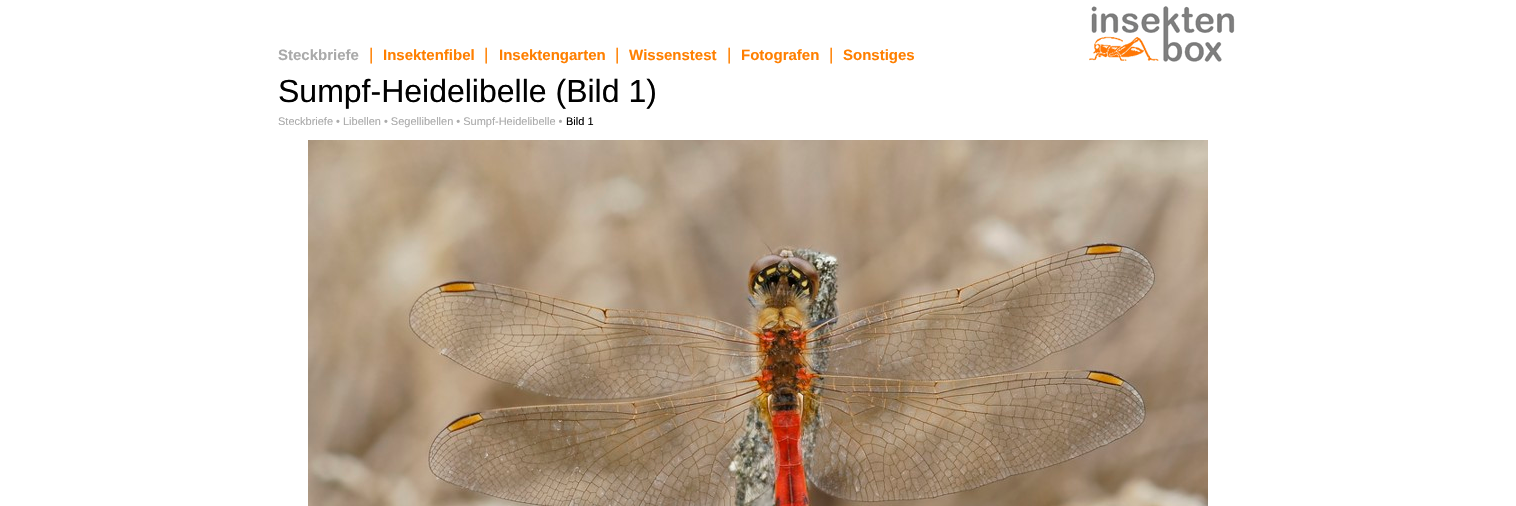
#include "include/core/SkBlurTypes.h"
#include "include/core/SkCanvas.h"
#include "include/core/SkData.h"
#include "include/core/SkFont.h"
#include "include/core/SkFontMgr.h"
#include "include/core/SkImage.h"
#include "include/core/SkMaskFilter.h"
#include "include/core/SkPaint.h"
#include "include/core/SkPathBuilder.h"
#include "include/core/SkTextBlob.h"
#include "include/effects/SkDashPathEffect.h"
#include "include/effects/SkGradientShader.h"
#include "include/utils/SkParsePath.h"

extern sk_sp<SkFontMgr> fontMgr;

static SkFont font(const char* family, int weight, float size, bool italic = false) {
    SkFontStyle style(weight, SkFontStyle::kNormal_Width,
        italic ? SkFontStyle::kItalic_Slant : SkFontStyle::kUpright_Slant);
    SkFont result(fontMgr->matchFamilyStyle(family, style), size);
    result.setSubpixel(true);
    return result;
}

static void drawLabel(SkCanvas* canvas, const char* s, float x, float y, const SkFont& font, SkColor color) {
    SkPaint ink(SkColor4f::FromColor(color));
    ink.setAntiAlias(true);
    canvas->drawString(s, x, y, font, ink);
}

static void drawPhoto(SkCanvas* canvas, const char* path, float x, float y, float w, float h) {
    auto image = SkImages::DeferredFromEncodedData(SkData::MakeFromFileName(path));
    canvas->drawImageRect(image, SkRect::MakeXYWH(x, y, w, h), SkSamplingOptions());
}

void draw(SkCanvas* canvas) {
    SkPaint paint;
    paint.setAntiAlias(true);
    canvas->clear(0xFFFFFFFF);
    SkFont font1 = font("Liberation Sans", 700, 15);
    drawLabel(canvas, "Steckbriefe", 278, 60, font1, 0xFFAAAAAA);
    SkFont font2 = font("Liberation Sans", 400, 17);
    drawLabel(canvas, "|", 369, 60, font2, 0xFFFF7F00);
    drawLabel(canvas, "Insektenfibel", 383, 60, font1, 0xFFFF7F00);
    drawLabel(canvas, "|", 484, 60, font2, 0xFFFF7F00);
    drawLabel(canvas, "Insektengarten", 499, 60, font1, 0xFFFF7F00);
    drawLabel(canvas, "|", 615, 60, font2, 0xFFFF7F00);
    drawLabel(canvas, "Wissenstest", 629, 60, font1, 0xFFFF7F00);
    drawLabel(canvas, "|", 727, 60, font2, 0xFFFF7F00);
    drawLabel(canvas, "Fotografen", 741, 60, font1, 0xFFFF7F00);
    drawLabel(canvas, "|", 829, 60, font2, 0xFFFF7F00);
    drawLabel(canvas, "Sonstiges", 843, 60, font1, 0xFFFF7F00);
    drawPhoto(canvas, "assets/img1.png", 1089, 6, 146, 56);
    SkFont font3 = font("Liberation Sans", 400, 32);
    drawLabel(canvas, "Sumpf-Heidelibelle (Bild 1)", 278, 102, font3, 0xFF000000);
    SkFont font4 = font("Liberation Sans", 400, 11);
    drawLabel(canvas, "Steckbriefe • Libellen • Segellibellen • Sumpf-Heidelibelle •", 278, 125, font4, 0xFFAAAAAA);
    drawLabel(canvas, "Bild 1", 566, 125, font4, 0xFF000000);
    drawPhoto(canvas, "assets/img2.png", 308, 140, 900, 366);
}
